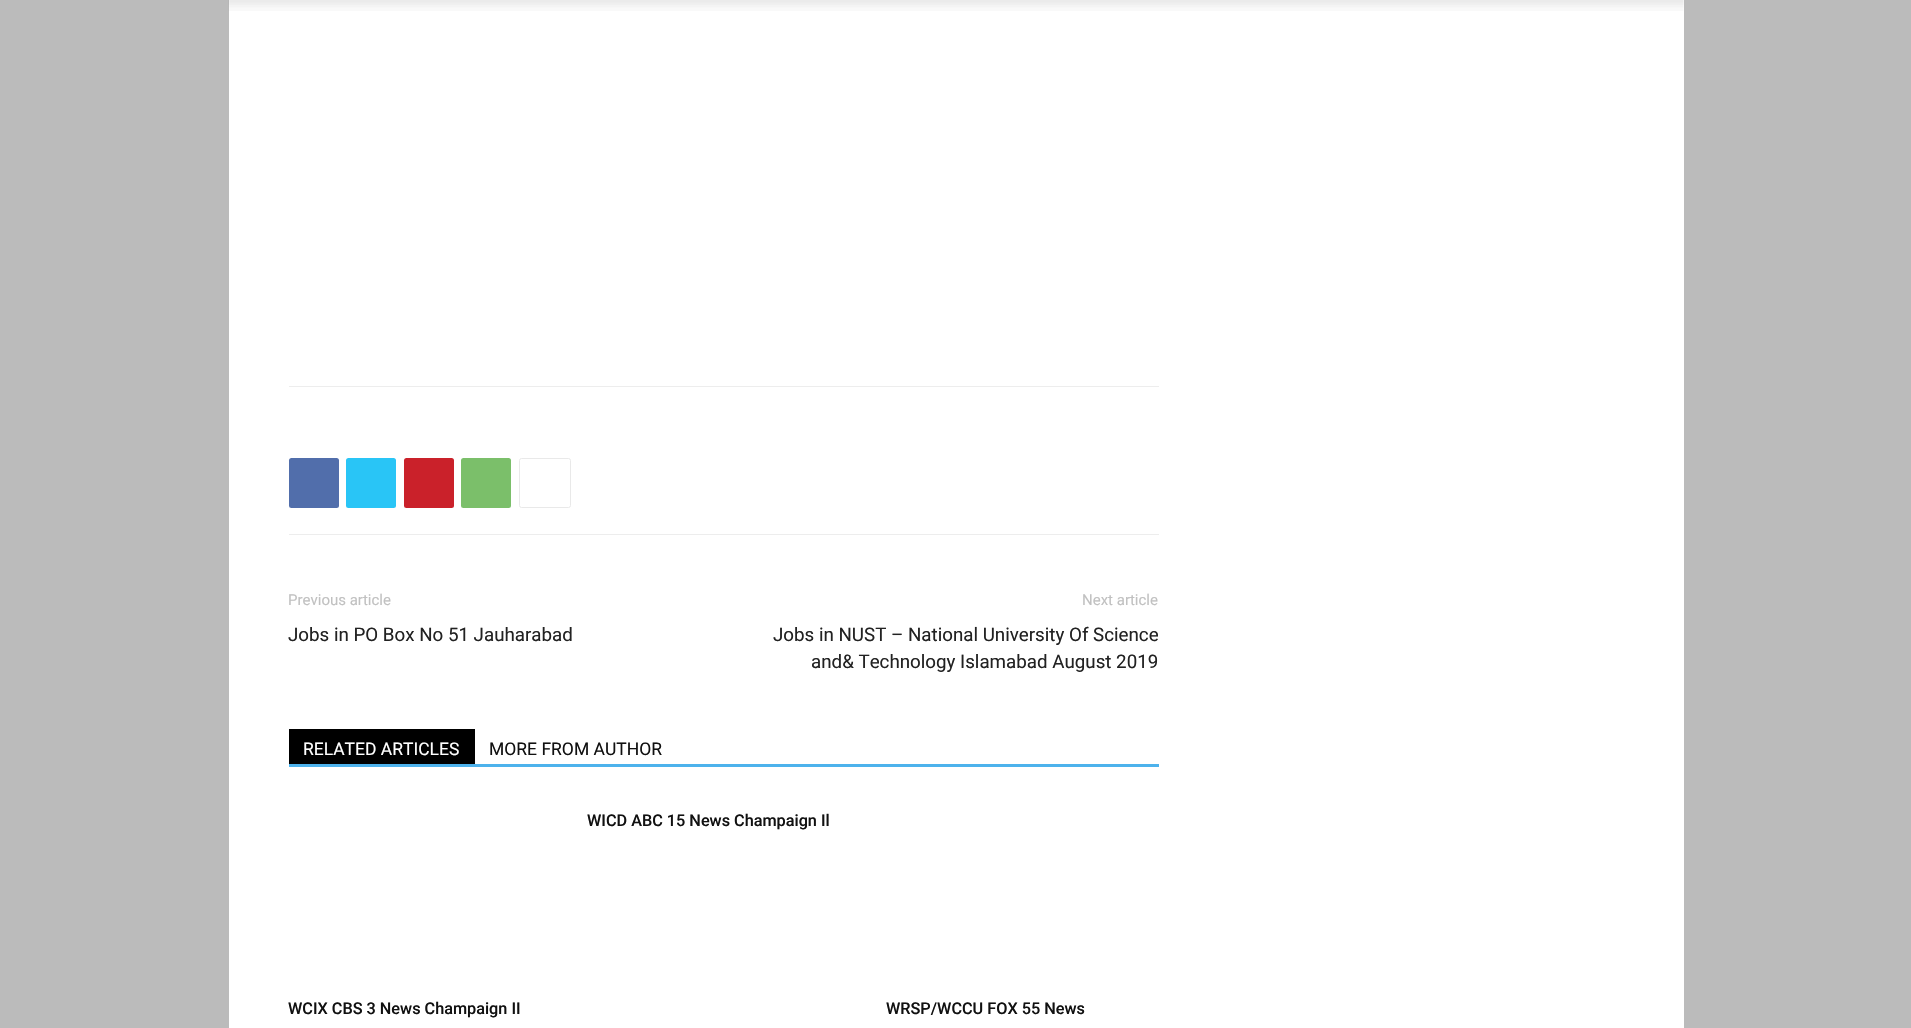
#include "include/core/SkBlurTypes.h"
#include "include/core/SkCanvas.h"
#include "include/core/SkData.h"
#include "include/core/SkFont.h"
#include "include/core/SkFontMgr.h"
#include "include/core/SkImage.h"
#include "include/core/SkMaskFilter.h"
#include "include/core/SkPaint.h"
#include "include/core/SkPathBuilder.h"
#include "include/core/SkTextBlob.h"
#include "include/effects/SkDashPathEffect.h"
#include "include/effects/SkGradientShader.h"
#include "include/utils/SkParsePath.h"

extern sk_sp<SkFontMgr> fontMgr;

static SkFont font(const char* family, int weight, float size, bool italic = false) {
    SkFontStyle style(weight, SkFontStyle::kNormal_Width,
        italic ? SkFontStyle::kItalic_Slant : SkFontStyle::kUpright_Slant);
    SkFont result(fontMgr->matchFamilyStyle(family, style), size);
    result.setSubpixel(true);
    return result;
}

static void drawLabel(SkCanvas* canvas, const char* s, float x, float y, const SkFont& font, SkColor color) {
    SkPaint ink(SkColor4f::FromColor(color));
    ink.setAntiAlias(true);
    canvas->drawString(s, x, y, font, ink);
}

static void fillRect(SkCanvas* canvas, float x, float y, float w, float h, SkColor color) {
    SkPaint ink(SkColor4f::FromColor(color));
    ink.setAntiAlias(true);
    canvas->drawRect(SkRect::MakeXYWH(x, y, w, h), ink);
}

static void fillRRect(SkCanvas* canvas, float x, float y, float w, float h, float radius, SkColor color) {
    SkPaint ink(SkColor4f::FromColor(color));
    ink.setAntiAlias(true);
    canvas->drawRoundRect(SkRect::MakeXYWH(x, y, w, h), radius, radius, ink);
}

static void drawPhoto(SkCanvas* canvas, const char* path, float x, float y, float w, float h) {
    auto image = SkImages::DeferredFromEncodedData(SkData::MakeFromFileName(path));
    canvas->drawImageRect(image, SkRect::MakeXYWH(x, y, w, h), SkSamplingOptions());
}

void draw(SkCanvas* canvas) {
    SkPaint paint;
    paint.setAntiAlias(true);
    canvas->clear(0xFFBBBBBB);
    fillRect(canvas, 229, 0, 1455, 1028, 0xFFFFFFFF);
    drawPhoto(canvas, "assets/img1.png", 228, 0, 1456, 11);
    fillRect(canvas, 289, 386, 870, 1, 0xFFEDEDED);
    fillRect(canvas, 289, 534, 870, 1, 0xFFEDEDED);
    fillRRect(canvas, 289, 458, 50, 50, 2.5f, 0xFF516EAB);
    fillRRect(canvas, 346, 458, 50, 50, 2.5f, 0xFF29C5F6);
    fillRRect(canvas, 404, 458, 50, 50, 2.5f, 0xFFCA212A);
    fillRRect(canvas, 461, 458, 50, 50, 2.5f, 0xFF7BBF6A);
    paint.setStroke(true);
    paint.setStrokeWidth(1);
    paint.setColor(0xFFE9E9E9);
    canvas->drawRoundRect(SkRect::MakeXYWH(519.5f, 458.5f, 51, 49), 2, 2, paint);
    SkFont font1 = font("Roboto", 400, 15);
    drawLabel(canvas, "Previous article", 288, 605, font1, 0xFFC1C1C1);
    SkFont font2 = font("Roboto", 400, 18.75f);
    drawLabel(canvas, "Jobs in PO Box No 51 Jauharabad", 288, 641, font2, 0xFF222222);
    drawLabel(canvas, "Next article", 1082, 605, font1, 0xFFC1C1C1);
    drawLabel(canvas, "Jobs in NUST – National University Of Science", 773, 641, font2, 0xFF222222);
    drawLabel(canvas, "and& Technology Islamabad August 2019", 811, 668, font2, 0xFF222222);
    fillRect(canvas, 289, 764, 870, 3, 0xFF4DB2EC);
    fillRect(canvas, 289, 729, 186, 35, 0xFF000000);
    SkFont font3 = font("Roboto", 400, 17.5f);
    drawLabel(canvas, "RELATED ARTICLES", 303, 755, font3, 0xFFFFFFFF);
    drawLabel(canvas, "MORE FROM AUTHOR", 489, 755, font3, 0xFF111111);
    SkFont font4 = font("Roboto", 500, 16.25f);
    drawLabel(canvas, "WICD ABC 15 News Champaign Il", 587, 826, font4, 0xFF111111);
    drawLabel(canvas, "WCIX CBS 3 News Champaign II", 288, 1014, font4, 0xFF111111);
    drawLabel(canvas, "WRSP/WCCU FOX 55 News", 886, 1014, font4, 0xFF111111);
}
